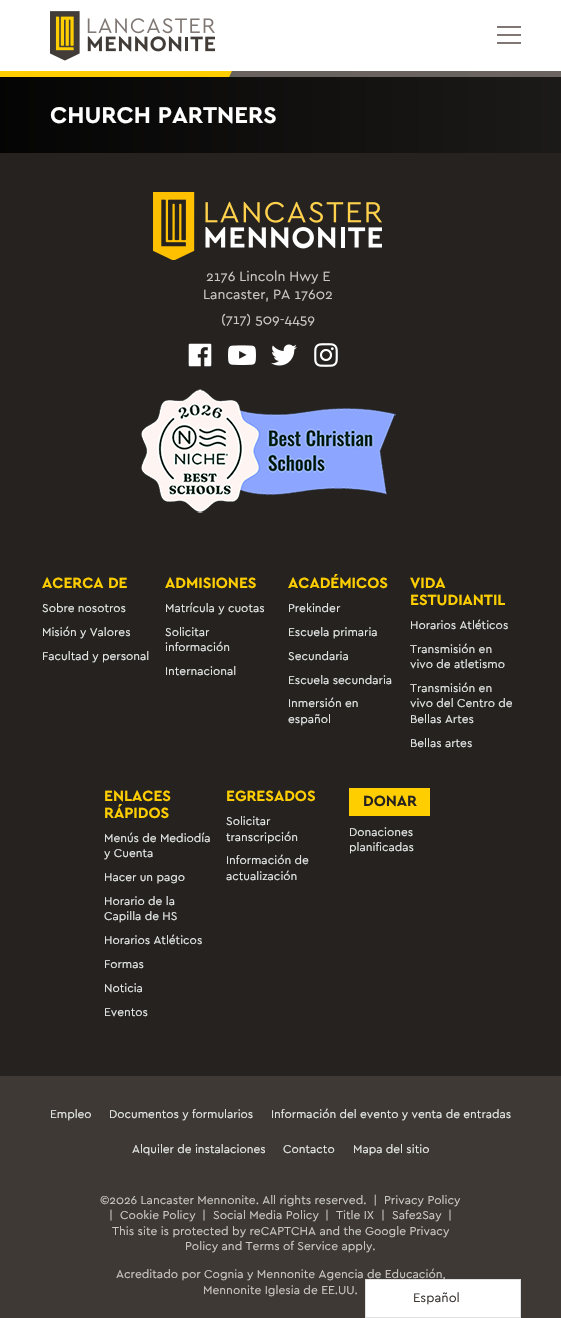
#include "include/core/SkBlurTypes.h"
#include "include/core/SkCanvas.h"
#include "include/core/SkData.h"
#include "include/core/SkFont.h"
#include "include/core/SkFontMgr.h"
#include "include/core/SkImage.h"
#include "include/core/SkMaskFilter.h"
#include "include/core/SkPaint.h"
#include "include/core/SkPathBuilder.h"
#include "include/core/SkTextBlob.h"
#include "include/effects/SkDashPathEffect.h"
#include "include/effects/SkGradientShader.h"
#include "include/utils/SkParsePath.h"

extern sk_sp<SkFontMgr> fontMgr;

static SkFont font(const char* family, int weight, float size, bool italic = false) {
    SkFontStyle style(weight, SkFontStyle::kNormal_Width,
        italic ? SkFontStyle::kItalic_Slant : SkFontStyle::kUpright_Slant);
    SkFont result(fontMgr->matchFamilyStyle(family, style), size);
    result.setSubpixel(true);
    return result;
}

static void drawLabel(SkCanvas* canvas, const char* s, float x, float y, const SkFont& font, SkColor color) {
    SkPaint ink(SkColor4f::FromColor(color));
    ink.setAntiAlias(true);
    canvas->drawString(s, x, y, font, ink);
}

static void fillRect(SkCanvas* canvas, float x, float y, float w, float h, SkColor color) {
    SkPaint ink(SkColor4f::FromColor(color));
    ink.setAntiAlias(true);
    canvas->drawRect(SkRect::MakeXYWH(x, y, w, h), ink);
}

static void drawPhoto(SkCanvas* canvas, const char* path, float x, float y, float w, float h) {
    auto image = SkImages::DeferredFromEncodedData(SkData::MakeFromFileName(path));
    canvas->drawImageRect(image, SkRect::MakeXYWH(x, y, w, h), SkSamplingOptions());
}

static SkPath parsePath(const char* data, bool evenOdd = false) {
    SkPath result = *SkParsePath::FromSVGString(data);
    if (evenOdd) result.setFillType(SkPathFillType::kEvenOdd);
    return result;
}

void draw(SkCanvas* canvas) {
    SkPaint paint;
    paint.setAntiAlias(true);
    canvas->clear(0xFF3E3935);
    fillRect(canvas, 0, 0, 561, 71, 0xFFFFFFFF);
    drawPhoto(canvas, "assets/img1.png", 50, 11, 165, 50);
    fillRect(canvas, 497, 26, 24, 2, 0xFF7F7773);
    fillRect(canvas, 497, 34, 24, 2, 0xFF7F7773);
    fillRect(canvas, 497, 42, 24, 2, 0xFF7F7773);
    fillRect(canvas, 0, 71, 201, 6, 0xFFFFCE00);
    {
        const SkColor colors[] = {0xFF66605C, 0xFF6D6662};
        const float stops[] = {0.33f, 1};
        const SkPoint ends[] = {{-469, 109}, {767, 108}};
        paint.setShader(SkGradientShader::MakeLinear(ends, colors, stops, 2, SkTileMode::kClamp));
        paint.setAlpha(255);
    }
    canvas->drawRect(SkRect::MakeXYWH(229, 71, 332, 6), paint);
    canvas->save();
    canvas->clipRect(SkRect::MakeXYWH(50, 71, 225, 6));
    paint.setShader(nullptr);
    paint.setColor(0xFFFFCE00);
    canvas->drawPath(parsePath("M175-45L266-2L224 88L133 46Z"), paint);
    canvas->restore();
    {
        const SkColor colors[] = {0xFF020202, 0xFF252220};
        const float stops[] = {0.33f, 1};
        const SkPoint ends[] = {{-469, 109}, {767, 108}};
        paint.setShader(SkGradientShader::MakeLinear(ends, colors, stops, 2, SkTileMode::kClamp));
        paint.setAlpha(255);
    }
    canvas->drawRect(SkRect::MakeXYWH(0, 77, 561, 76), paint);
    SkFont font1 = font("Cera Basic", 700, 24);
    drawLabel(canvas, "CHURCH PARTNERS", 50, 123, font1, 0xFFFFFFFF);
    fillRect(canvas, 0, 153, 561, 923, 0xFF252220);
    drawPhoto(canvas, "assets/img2.png", 153, 192, 229, 68);
    SkFont font2 = font("Cera Basic", 400, 14);
    drawLabel(canvas, "2176 Lincoln Hwy E", 206, 281, font2, 0xFFCBC9C4);
    drawLabel(canvas, "Lancaster, PA 17602", 203, 299, font2, 0xFFCBC9C4);
    drawLabel(canvas, "(717) 509-4459", 221, 324, font2, 0xFFCBC9C4);
    drawPhoto(canvas, "assets/img3.png", 188, 343, 24, 24);
    drawPhoto(canvas, "assets/img4.png", 228, 345, 28, 20);
    drawPhoto(canvas, "assets/img5.png", 271, 344, 26, 22);
    drawPhoto(canvas, "assets/img6.png", 314, 343, 24, 24);
    drawPhoto(canvas, "assets/img7.png", 141, 389, 255, 124);
    SkFont font3 = font("Cera Basic", 700, 15.5f);
    drawLabel(canvas, "ACERCA DE", 42, 588, font3, 0xFFFFCE00);
    SkFont font4 = font("Cera Basic", 400, 11.9f);
    drawLabel(canvas, "Sobre nosotros", 42, 612, font4, 0xFFE7EBE9);
    drawLabel(canvas, "Misión y Valores", 42, 636, font4, 0xFFE7EBE9);
    drawLabel(canvas, "Facultad y personal", 42, 660, font4, 0xFFE7EBE9);
    drawLabel(canvas, "ADMISIONES", 165, 588, font3, 0xFFFFCE00);
    drawLabel(canvas, "Matrícula y cuotas", 165, 612, font4, 0xFFE7EBE9);
    drawLabel(canvas, "Solicitar", 165, 636, font4, 0xFFE7EBE9);
    drawLabel(canvas, "información", 165, 651, font4, 0xFFE7EBE9);
    drawLabel(canvas, "Internacional", 165, 675, font4, 0xFFE7EBE9);
    drawLabel(canvas, "ACADÉMICOS", 288, 588, font3, 0xFFFFCE00);
    drawLabel(canvas, "Prekinder", 288, 612, font4, 0xFFE7EBE9);
    drawLabel(canvas, "Escuela primaria", 288, 636, font4, 0xFFE7EBE9);
    drawLabel(canvas, "Secundaria", 288, 660, font4, 0xFFE7EBE9);
    drawLabel(canvas, "Escuela secundaria", 288, 684, font4, 0xFFE7EBE9);
    drawLabel(canvas, "Inmersión en", 288, 707, font4, 0xFFE7EBE9);
    drawLabel(canvas, "español", 288, 723, font4, 0xFFE7EBE9);
    drawLabel(canvas, "VIDA", 410, 588, font3, 0xFFFFCE00);
    drawLabel(canvas, "ESTUDIANTIL", 410, 605, font3, 0xFFFFCE00);
    drawLabel(canvas, "Horarios Atléticos", 410, 629, font4, 0xFFE7EBE9);
    drawLabel(canvas, "Transmisión en", 410, 653, font4, 0xFFE7EBE9);
    drawLabel(canvas, "vivo de atletismo", 410, 668, font4, 0xFFE7EBE9);
    drawLabel(canvas, "Transmisión en", 410, 692, font4, 0xFFE7EBE9);
    drawLabel(canvas, "vivo del Centro de", 410, 707, font4, 0xFFE7EBE9);
    drawLabel(canvas, "Bellas Artes", 410, 723, font4, 0xFFE7EBE9);
    drawLabel(canvas, "Bellas artes", 410, 747, font4, 0xFFE7EBE9);
    drawLabel(canvas, "ENLACES", 104, 801, font3, 0xFFFFCE00);
    drawLabel(canvas, "RÁPIDOS", 104, 818, font3, 0xFFFFCE00);
    drawLabel(canvas, "Menús de Mediodía", 104, 842, font4, 0xFFE7EBE9);
    drawLabel(canvas, "y Cuenta", 104, 857, font4, 0xFFE7EBE9);
    drawLabel(canvas, "Hacer un pago", 104, 881, font4, 0xFFE7EBE9);
    drawLabel(canvas, "Horario de la", 104, 905, font4, 0xFFE7EBE9);
    drawLabel(canvas, "Capilla de HS", 104, 920, font4, 0xFFE7EBE9);
    drawLabel(canvas, "Horarios Atléticos", 104, 944, font4, 0xFFE7EBE9);
    drawLabel(canvas, "Formas", 104, 968, font4, 0xFFE7EBE9);
    drawLabel(canvas, "Noticia", 104, 992, font4, 0xFFE7EBE9);
    drawLabel(canvas, "Eventos", 104, 1016, font4, 0xFFE7EBE9);
    drawLabel(canvas, "EGRESADOS", 226, 801, font3, 0xFFFFCE00);
    drawLabel(canvas, "Solicitar", 226, 825, font4, 0xFFE7EBE9);
    drawLabel(canvas, "transcripción", 226, 841, font4, 0xFFE7EBE9);
    drawLabel(canvas, "Información de", 226, 864, font4, 0xFFE7EBE9);
    drawLabel(canvas, "actualización", 226, 880, font4, 0xFFE7EBE9);
    fillRect(canvas, 349, 788, 81, 28, 0xFFFFCE00);
    drawLabel(canvas, "DONAR", 363, 806, font3, 0xFF252220);
    drawLabel(canvas, "Donaciones", 349, 836, font4, 0xFFE7EBE9);
    drawLabel(canvas, "planificadas", 349, 851, font4, 0xFFE7EBE9);
    drawLabel(canvas, "Empleo", 50, 1118, font4, 0xFFE7EBE9);
    drawLabel(canvas, "Documentos y formularios", 109, 1118, font4, 0xFFE7EBE9);
    drawLabel(canvas, "Información del evento y venta de entradas", 271, 1118, font4, 0xFFE7EBE9);
    drawLabel(canvas, "Alquiler de instalaciones", 132, 1153, font4, 0xFFE7EBE9);
    drawLabel(canvas, "Contacto", 283, 1153, font4, 0xFFE7EBE9);
    drawLabel(canvas, "Mapa del sitio", 353, 1153, font4, 0xFFE7EBE9);
    SkFont font5 = font("Cera Basic", 400, 12);
    drawLabel(canvas, "©2026 Lancaster Mennonite. All rights reserved.  |", 100, 1204, font5, 0xFFCBC9C4);
    drawLabel(canvas, "Privacy Policy", 384, 1204, font5, 0xFFCBC9C4);
    drawLabel(canvas, "|", 109, 1219, font5, 0xFFCBC9C4);
    drawLabel(canvas, "Cookie Policy", 120, 1219, font5, 0xFFCBC9C4);
    drawLabel(canvas, "|", 202, 1219, font5, 0xFFCBC9C4);
    drawLabel(canvas, "Social Media Policy", 213, 1219, font5, 0xFFCBC9C4);
    drawLabel(canvas, "|", 325, 1219, font5, 0xFFCBC9C4);
    drawLabel(canvas, "Title IX", 336, 1219, font5, 0xFFCBC9C4);
    drawLabel(canvas, "|", 381, 1219, font5, 0xFFCBC9C4);
    drawLabel(canvas, "Safe2Say", 392, 1219, font5, 0xFFCBC9C4);
    drawLabel(canvas, "|", 448, 1219, font5, 0xFFCBC9C4);
    drawLabel(canvas, "This site is protected by reCAPTCHA and the Google Privacy", 112, 1235, font5, 0xFFCBC9C4);
    drawLabel(canvas, "Policy and Terms of Service apply.", 185, 1250, font5, 0xFFCBC9C4);
    drawLabel(canvas, "Acreditado por Cognia y Mennonite Agencia de Educación,", 116, 1278, font5, 0xFFCBC9C4);
    drawLabel(canvas, "Mennonite Iglesia de EE.UU.", 203, 1294, font5, 0xFFCBC9C4);
    paint.setShader(nullptr);
    paint.setColor(0xFFFFFFFF);
    canvas->drawRect(SkRect::MakeXYWH(365.5f, 1279.5f, 155, 38), paint);
    paint.setStroke(true);
    paint.setStrokeWidth(1);
    paint.setColor(0xFFE0E0E0);
    canvas->drawRect(SkRect::MakeXYWH(365.5f, 1279.5f, 155, 38), paint);
    SkFont font6 = font("Cera Basic", 400, 13);
    drawLabel(canvas, "Español", 413, 1302, font6, 0xFF3E3935);
}
